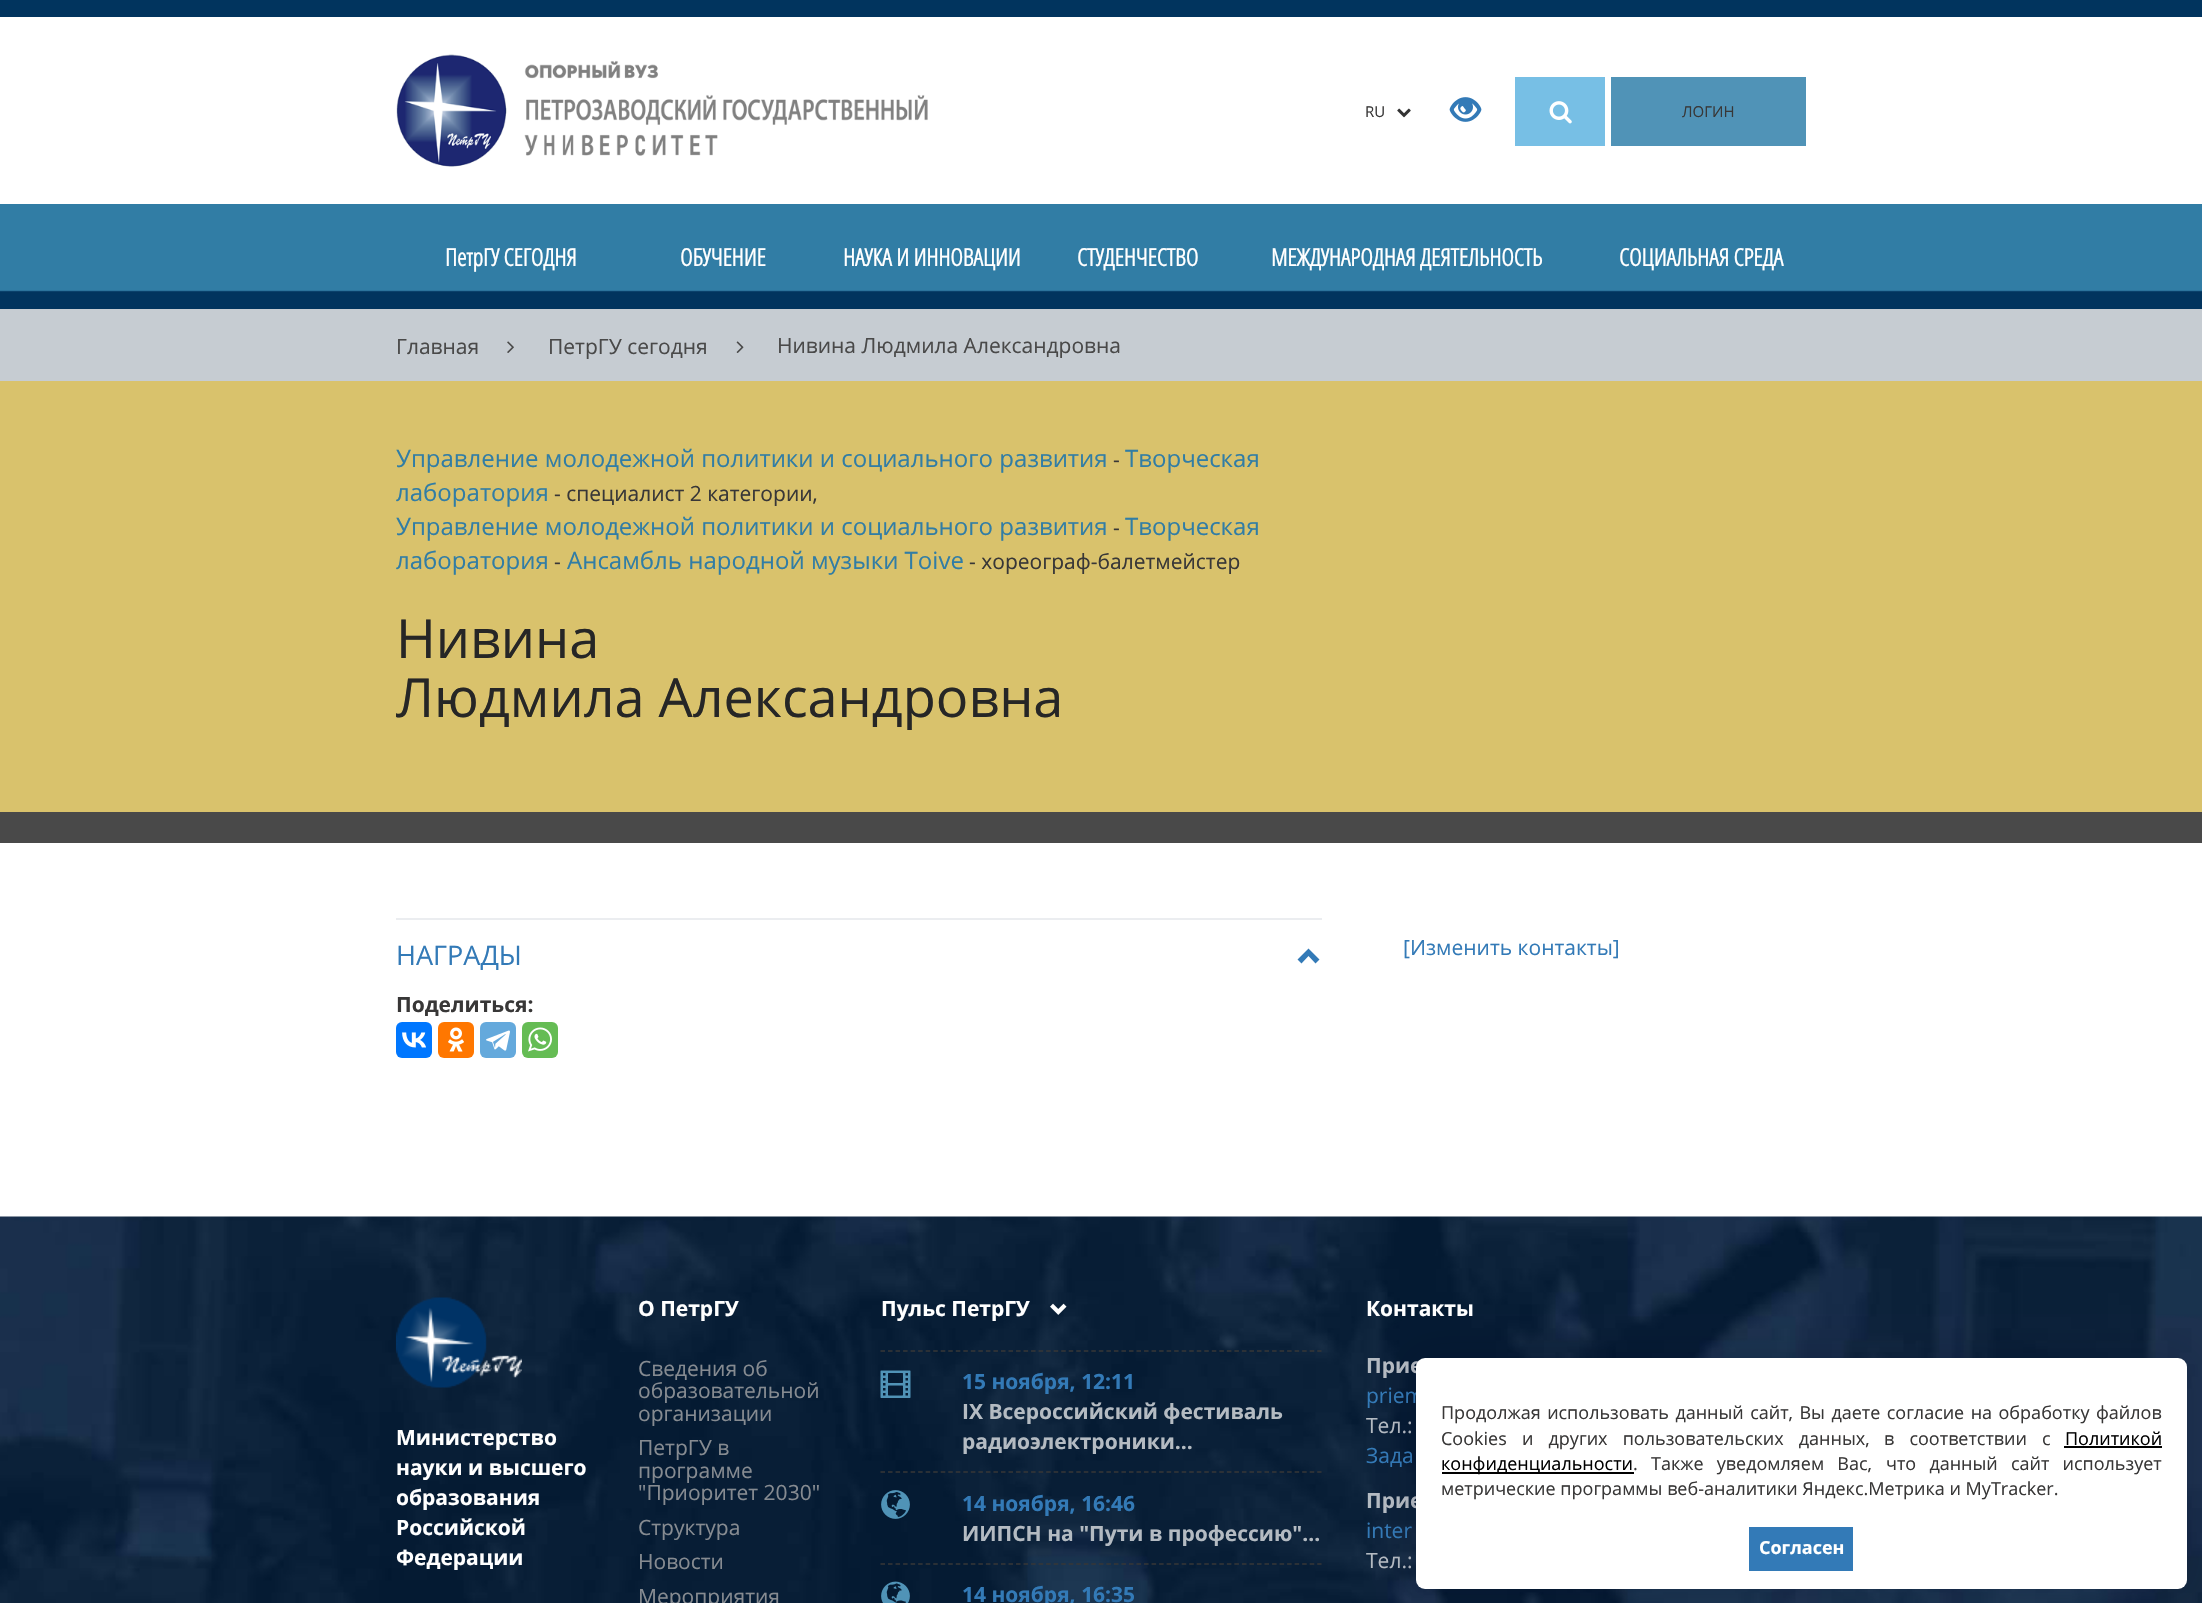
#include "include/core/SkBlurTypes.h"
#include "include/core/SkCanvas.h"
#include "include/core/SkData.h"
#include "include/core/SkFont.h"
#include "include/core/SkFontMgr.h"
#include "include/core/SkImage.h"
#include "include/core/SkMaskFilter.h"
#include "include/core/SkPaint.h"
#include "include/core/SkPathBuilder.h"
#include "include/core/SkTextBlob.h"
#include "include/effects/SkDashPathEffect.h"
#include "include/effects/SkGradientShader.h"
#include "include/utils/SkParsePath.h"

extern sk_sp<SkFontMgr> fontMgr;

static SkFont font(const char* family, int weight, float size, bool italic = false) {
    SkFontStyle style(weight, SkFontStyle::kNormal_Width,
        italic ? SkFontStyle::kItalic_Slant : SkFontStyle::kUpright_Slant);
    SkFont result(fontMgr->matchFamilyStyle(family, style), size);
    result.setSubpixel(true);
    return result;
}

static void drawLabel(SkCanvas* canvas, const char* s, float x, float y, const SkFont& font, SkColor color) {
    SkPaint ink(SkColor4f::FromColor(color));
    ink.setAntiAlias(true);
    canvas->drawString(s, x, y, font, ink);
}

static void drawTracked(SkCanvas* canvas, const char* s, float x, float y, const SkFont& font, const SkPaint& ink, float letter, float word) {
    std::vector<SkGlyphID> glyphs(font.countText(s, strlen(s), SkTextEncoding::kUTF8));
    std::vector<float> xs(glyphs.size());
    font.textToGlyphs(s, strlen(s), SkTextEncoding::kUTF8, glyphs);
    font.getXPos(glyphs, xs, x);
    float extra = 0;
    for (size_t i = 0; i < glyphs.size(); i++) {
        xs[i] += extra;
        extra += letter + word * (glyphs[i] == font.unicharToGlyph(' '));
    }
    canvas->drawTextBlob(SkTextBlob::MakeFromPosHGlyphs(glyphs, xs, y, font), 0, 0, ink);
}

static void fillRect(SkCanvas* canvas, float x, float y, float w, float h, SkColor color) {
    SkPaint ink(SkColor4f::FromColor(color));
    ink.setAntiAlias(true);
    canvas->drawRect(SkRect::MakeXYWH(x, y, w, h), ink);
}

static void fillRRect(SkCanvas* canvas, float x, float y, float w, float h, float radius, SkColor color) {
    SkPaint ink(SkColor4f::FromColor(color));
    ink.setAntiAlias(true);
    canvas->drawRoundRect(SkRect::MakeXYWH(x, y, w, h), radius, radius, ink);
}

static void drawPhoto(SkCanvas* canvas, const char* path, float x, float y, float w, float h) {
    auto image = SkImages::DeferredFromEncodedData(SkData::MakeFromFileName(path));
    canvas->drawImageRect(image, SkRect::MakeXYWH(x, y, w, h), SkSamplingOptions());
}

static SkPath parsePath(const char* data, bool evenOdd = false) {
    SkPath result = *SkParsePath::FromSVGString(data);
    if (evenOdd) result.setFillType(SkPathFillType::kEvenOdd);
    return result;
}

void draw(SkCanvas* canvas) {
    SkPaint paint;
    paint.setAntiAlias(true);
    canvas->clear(0xFFFFFFFF);
    fillRect(canvas, 0, 0, 2202, 17, 0xFF01345E);
    drawPhoto(canvas, "assets/img1.png", 396, 54, 532, 113);
    SkFont font1 = font("Open Sans", 400, 15);
    drawLabel(canvas, "RU", 1365, 117, font1, 0xFF383737);
    drawPhoto(canvas, "assets/img2.png", 1397, 108, 14, 10);
    drawPhoto(canvas, "assets/img3.png", 1449, 97, 33, 25);
    fillRect(canvas, 1515, 77, 90, 69, 0xFF77BFE5);
    drawPhoto(canvas, "assets/img4.png", 1549, 101, 23, 23);
    fillRect(canvas, 1611, 77, 195, 69, 0xFF5093B7);
    drawLabel(canvas, "ЛОГИН", 1682, 117, font1, 0xFF383737);
    fillRect(canvas, 0, 204, 2202, 86, 0xFF317DA5);
    drawPhoto(canvas, "assets/img5.png", 0, 290, 2202, 19);
    SkFont font2 = font("Open Sans Condensed", 700, 24);
    drawLabel(canvas, "ПетрГУ СЕГОДНЯ", 445, 266, font2, 0xFFFFFFFF);
    drawLabel(canvas, "ОБУЧЕНИЕ", 680, 266, font2, 0xFFFFFFFF);
    drawLabel(canvas, "НАУКА И ИННОВАЦИИ", 843, 266, font2, 0xFFFFFFFF);
    drawLabel(canvas, "СТУДЕНЧЕСТВО", 1077, 266, font2, 0xFFFFFFFF);
    drawLabel(canvas, "МЕЖДУНАРОДНАЯ ДЕЯТЕЛЬНОСТЬ", 1271, 266, font2, 0xFFFFFFFF);
    drawLabel(canvas, "СОЦИАЛЬНАЯ СРЕДА", 1619, 266, font2, 0xFFFFFFFF);
    fillRect(canvas, 0, 309, 2202, 72, 0xFFC6CCD2);
    SkFont font3 = font("Open Sans", 400, 21);
    drawLabel(canvas, "Главная", 396, 354, font3, 0xFF494949);
    drawPhoto(canvas, "assets/img6.png", 507, 341, 7, 12);
    drawLabel(canvas, "ПетрГУ сегодня", 548, 354, font3, 0xFF494949);
    drawPhoto(canvas, "assets/img7.png", 736, 341, 8, 12);
    drawLabel(canvas, "Нивина Людмила Александровна", 777, 353, font3, 0xFF494949);
    fillRect(canvas, 0, 381, 2202, 431, 0xFFD9C26C);
    SkFont font4 = font("Open Sans", 400, 24);
    drawLabel(canvas, "Управление молодежной политики и социального развития", 396, 467, font4, 0xFF317DA5);
    drawLabel(canvas, "-", 1113, 467, font3, 0xFF383737);
    drawLabel(canvas, "Творческая", 1125, 467, font4, 0xFF317DA5);
    drawLabel(canvas, "лаборатория", 396, 501, font4, 0xFF317DA5);
    drawLabel(canvas, "- специалист 2 категории,", 554, 501, font3, 0xFF383737);
    drawLabel(canvas, "Управление молодежной политики и социального развития", 396, 535, font4, 0xFF317DA5);
    drawLabel(canvas, "-", 1113, 535, font3, 0xFF383737);
    drawLabel(canvas, "Творческая", 1125, 535, font4, 0xFF317DA5);
    drawLabel(canvas, "лаборатория", 396, 569, font4, 0xFF317DA5);
    drawLabel(canvas, "-", 554, 569, font3, 0xFF383737);
    drawLabel(canvas, "Ансамбль народной музыки Toive", 567, 569, font4, 0xFF317DA5);
    drawLabel(canvas, "- хореограф-балетмейстер", 969, 569, font3, 0xFF383737);
    SkFont font5 = font("Open Sans", 400, 54);
    drawLabel(canvas, "Нивина", 396, 658, font5, 0xFF262626);
    drawLabel(canvas, "Людмила Александровна", 396, 717, font5, 0xFF262626);
    fillRect(canvas, 0, 812, 2202, 31, 0xFF494949);
    fillRect(canvas, 396, 918, 926, 2, 0xFFEBEDF0);
    SkFont font6 = font("Open Sans", 400, 27);
    drawLabel(canvas, "НАГРАДЫ", 396, 965, font6, 0xFF337AB7);
    paint.setColor(0xFF337AB7);
    canvas->drawPath(parsePath("M1319.5 959.5L1315.5 963.5L1308.5 956L1301.5 963.5L1297.5 959.5L1308.5 948.5Z"), paint);
    SkFont font7 = font("Open Sans", 700, 21);
    drawLabel(canvas, "Поделиться:", 396, 1012, font7, 0xFF383737);
    fillRRect(canvas, 396, 1022, 36, 36, 6, 0xFF0077FF);
    drawPhoto(canvas, "assets/img8.png", 402, 1032, 24, 16);
    fillRRect(canvas, 438, 1022, 36, 36, 6, 0xFFFF7700);
    drawPhoto(canvas, "assets/img9.png", 448, 1027, 16, 25);
    fillRRect(canvas, 480, 1022, 36, 36, 6, 0xFF64A9DC);
    drawPhoto(canvas, "assets/img10.png", 486, 1030, 24, 21);
    fillRRect(canvas, 522, 1022, 36, 36, 6, 0xFF65BC54);
    drawPhoto(canvas, "assets/img11.png", 528, 1027, 24, 25);
    drawLabel(canvas, "[Изменить контакты]", 1403, 955, font3, 0xFF337AB7);
    drawPhoto(canvas, "assets/img12.png", 0, 1216, 2202, 387);
    drawPhoto(canvas, "assets/img13.png", 396, 1297, 126, 91);
    drawLabel(canvas, "Министерство", 396, 1445, font7, 0xFFFFFFFF);
    drawLabel(canvas, "науки и высшего", 396, 1475, font7, 0xFFFFFFFF);
    drawLabel(canvas, "образования", 396, 1505, font7, 0xFFFFFFFF);
    drawLabel(canvas, "Российской", 396, 1535, font7, 0xFFFFFFFF);
    drawLabel(canvas, "Федерации", 396, 1565, font7, 0xFFFFFFFF);
    drawLabel(canvas, "О ПетрГУ", 638, 1316, font7, 0xFFFFFFFF);
    drawLabel(canvas, "Сведения об", 638, 1376, font3, 0xFF868B91);
    drawLabel(canvas, "образовательной", 638, 1398, font3, 0xFF868B91);
    drawLabel(canvas, "организации", 638, 1421, font3, 0xFF868B91);
    drawLabel(canvas, "ПетрГУ в", 638, 1455, font3, 0xFF868B91);
    drawLabel(canvas, "программе", 638, 1478, font3, 0xFF868B91);
    drawLabel(canvas, "\"Приоритет 2030\"", 638, 1500, font3, 0xFF868B91);
    drawLabel(canvas, "Структура", 638, 1535, font3, 0xFF868B91);
    drawLabel(canvas, "Новости", 638, 1569, font3, 0xFF868B91);
    drawLabel(canvas, "Мероприятия", 638, 1604, font3, 0xFF868B91);
    drawLabel(canvas, "Пульс ПетрГУ", 881, 1316, font7, 0xFFFFFFFF);
    drawPhoto(canvas, "assets/img14.png", 1050, 1303, 17, 12);
    paint.setStroke(true);
    paint.setStrokeWidth(1.5f);
    paint.setColor(0xFF363636);
    paint.setPathEffect(SkDashPathEffect::Make({{4.5f, 3.03f}}, 0));
    canvas->drawPath(parsePath("M880.5 1351H1321.5"), paint);
    paint.setPathEffect(nullptr);
    drawPhoto(canvas, "assets/img15.png", 880, 1370, 31, 28);
    drawLabel(canvas, "15 ноября, 12:11", 962, 1389, font7, 0xFF337AB7);
    drawLabel(canvas, "IX Всероссийский фестиваль", 962, 1419, font7, 0xFFB4BBC2);
    drawLabel(canvas, "радиоэлектроники...", 962, 1449, font7, 0xFFB4BBC2);
    paint.setPathEffect(SkDashPathEffect::Make({{4.5f, 3.03f}}, 0));
    canvas->drawPath(parsePath("M880.5 1472H1321.5"), paint);
    paint.setPathEffect(nullptr);
    drawPhoto(canvas, "assets/img16.png", 881, 1490, 29, 29);
    drawLabel(canvas, "14 ноября, 16:46", 962, 1511, font7, 0xFF337AB7);
    drawLabel(canvas, "ИИПСН на \"Пути в профессию\"...", 962, 1541, font7, 0xFFB4BBC2);
    paint.setPathEffect(SkDashPathEffect::Make({{4.5f, 3.03f}}, 0));
    canvas->drawPath(parsePath("M880.5 1564H1321.5"), paint);
    paint.setPathEffect(nullptr);
    drawPhoto(canvas, "assets/img17.png", 881, 1581, 29, 22);
    drawLabel(canvas, "14 ноября, 16:35", 962, 1602, font7, 0xFF337AB7);
    drawLabel(canvas, "Контакты", 1366, 1316, font7, 0xFFFFFFFF);
    drawLabel(canvas, "Прие", 1366, 1373, font7, 0xFFB4BBC2);
    drawLabel(canvas, "priem", 1366, 1403, font3, 0xFF337AB7);
    drawLabel(canvas, "Tел.:", 1366, 1433, font3, 0xFFB4BBC2);
    drawLabel(canvas, "Зада", 1366, 1463, font3, 0xFF337AB7);
    drawLabel(canvas, "Прие", 1366, 1508, font7, 0xFFB4BBC2);
    drawLabel(canvas, "inter", 1366, 1538, font3, 0xFF337AB7);
    drawLabel(canvas, "Tел.:", 1366, 1568, font3, 0xFFB4BBC2);
    paint.setStroke(false);
    paint.setColor(0x2605001F);
    paint.setMaskFilter(SkMaskFilter::MakeBlur(kNormal_SkBlurStyle, 18));
    canvas->drawRoundRect(SkRect::MakeXYWH(1416, 1358, 771, 231), 9, 9, paint);
    paint.setMaskFilter(nullptr);
    fillRRect(canvas, 1416, 1358, 771, 231, 9, 0xFFFFFFFF);
    SkFont font8 = font("Open Sans", 400, 18);
    paint.setColor(0xFF383737);
    drawTracked(canvas, "Продолжая использовать данный сайт, Вы даете согласие на обработку файлов", 1441, 1419, font8, paint, 0, 1.75f);
    drawTracked(canvas, "Cookies и других пользовательских данных,", 1441, 1445, font8, paint, 0, 10.5f);
    drawTracked(canvas, "в соответствии с", 1884, 1445, font8, paint, 0, 10.5f);
    drawLabel(canvas, "Политикой", 2065, 1445, font8, 0xFF000000);
    fillRect(canvas, 2064, 1446, 98, 2, 0xFF000000);
    fillRect(canvas, 1442, 1472, 192, 2, 0xFF000000);
    drawLabel(canvas, "конфиденциальности", 1441, 1470, font8, 0xFF000000);
    drawTracked(canvas, ". Также уведомляем Вас,", 1633, 1470, font8, paint, 0, 8.5f);
    drawTracked(canvas, "что данный сайт использует", 1886, 1470, font8, paint, 0, 8.5f);
    drawLabel(canvas, "метрические программы веб-аналитики Яндекс.Метрика и MyTracker.", 1441, 1495, font8, 0xFF383737);
    fillRect(canvas, 1749, 1527, 104, 44, 0xFF337AB7);
    SkFont font9 = font("Open Sans", 700, 18);
    drawLabel(canvas, "Согласен", 1759, 1554, font9, 0xFFFFFFFF);
}
